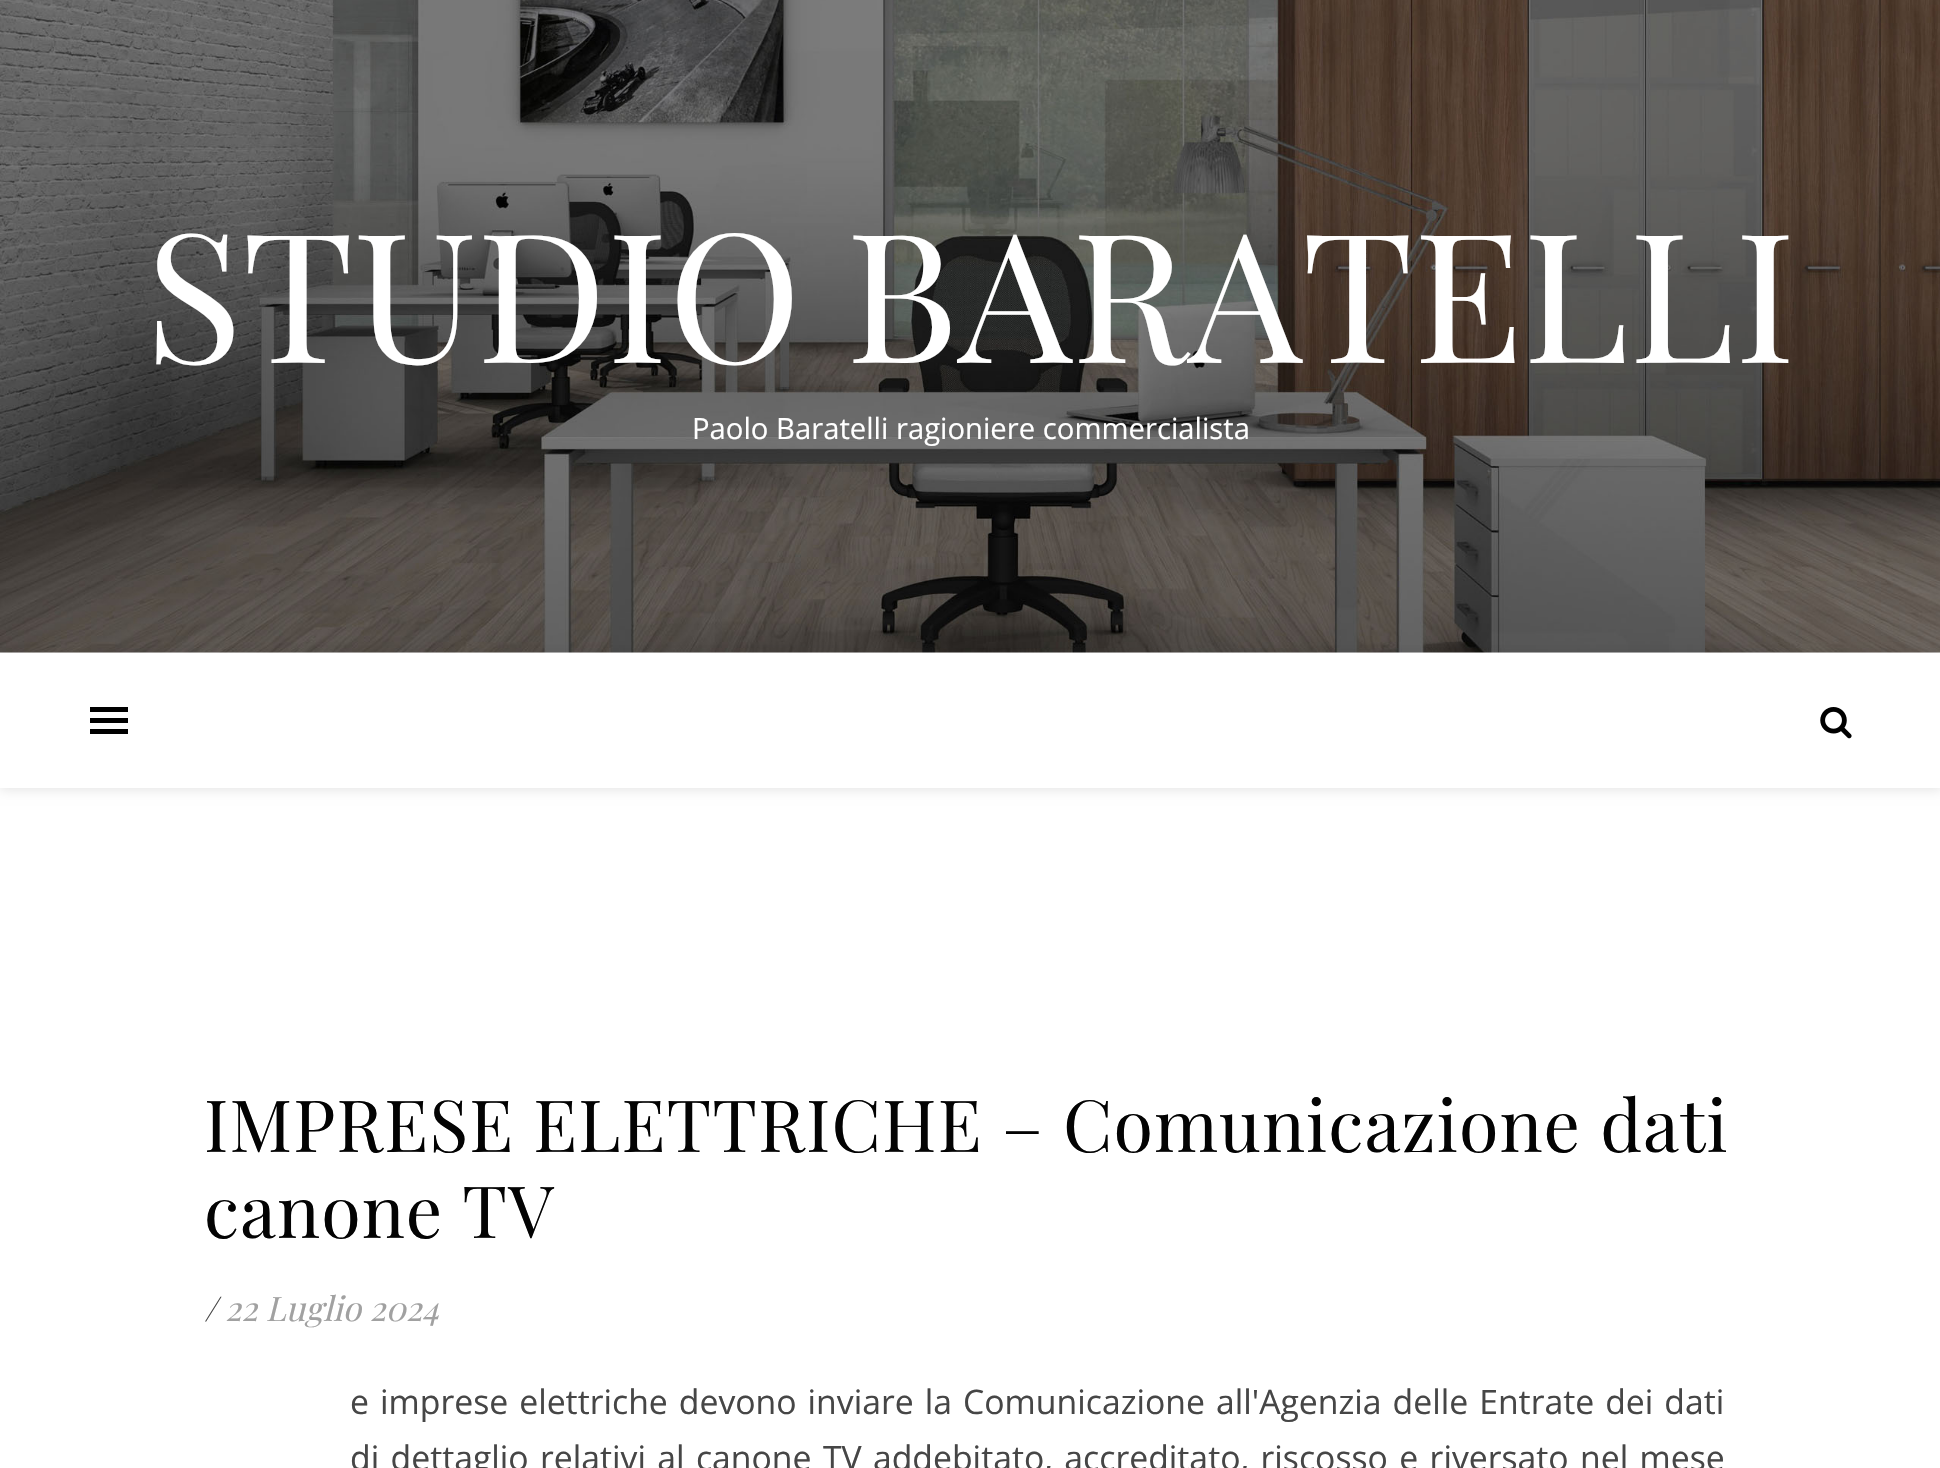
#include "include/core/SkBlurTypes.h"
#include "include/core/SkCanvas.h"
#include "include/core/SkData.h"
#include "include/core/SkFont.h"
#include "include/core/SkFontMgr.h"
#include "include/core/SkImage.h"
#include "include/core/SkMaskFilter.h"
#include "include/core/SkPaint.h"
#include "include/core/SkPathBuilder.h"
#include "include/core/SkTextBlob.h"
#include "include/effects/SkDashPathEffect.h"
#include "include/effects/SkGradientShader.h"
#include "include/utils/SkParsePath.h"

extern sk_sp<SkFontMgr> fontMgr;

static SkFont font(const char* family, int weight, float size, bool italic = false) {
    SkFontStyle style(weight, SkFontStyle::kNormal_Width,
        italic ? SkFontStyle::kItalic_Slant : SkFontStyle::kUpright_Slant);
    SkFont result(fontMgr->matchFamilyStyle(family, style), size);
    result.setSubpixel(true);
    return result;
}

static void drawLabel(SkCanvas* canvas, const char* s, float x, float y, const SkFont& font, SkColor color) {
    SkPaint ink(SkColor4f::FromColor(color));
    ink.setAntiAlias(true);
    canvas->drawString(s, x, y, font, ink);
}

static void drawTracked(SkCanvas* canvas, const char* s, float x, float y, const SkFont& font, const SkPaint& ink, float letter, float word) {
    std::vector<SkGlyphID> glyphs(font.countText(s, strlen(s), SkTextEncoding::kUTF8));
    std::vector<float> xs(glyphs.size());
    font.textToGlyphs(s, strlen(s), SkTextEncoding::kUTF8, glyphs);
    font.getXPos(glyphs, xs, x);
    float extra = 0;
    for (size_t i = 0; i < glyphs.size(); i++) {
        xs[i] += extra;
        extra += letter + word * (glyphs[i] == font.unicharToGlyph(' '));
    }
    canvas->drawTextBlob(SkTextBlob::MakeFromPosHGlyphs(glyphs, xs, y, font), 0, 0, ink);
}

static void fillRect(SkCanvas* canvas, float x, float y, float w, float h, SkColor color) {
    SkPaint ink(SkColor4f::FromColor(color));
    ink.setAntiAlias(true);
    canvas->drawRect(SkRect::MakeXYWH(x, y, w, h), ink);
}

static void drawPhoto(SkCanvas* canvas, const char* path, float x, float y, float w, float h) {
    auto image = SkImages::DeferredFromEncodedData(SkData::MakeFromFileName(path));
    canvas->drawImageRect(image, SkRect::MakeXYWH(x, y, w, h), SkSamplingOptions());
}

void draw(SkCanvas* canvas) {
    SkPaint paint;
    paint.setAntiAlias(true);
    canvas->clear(0xFFFFFFFF);
    drawPhoto(canvas, "assets/img1.png", 0, 0, 1940, 653);
    SkFont font1 = font("Playfair Display", 400, 180);
    drawLabel(canvas, "STUDIO BARATELLI", 145, 363, font1, 0xFFFFFFFF);
    SkFont font2 = font("Open Sans", 400, 29.25f);
    drawLabel(canvas, "Paolo Baratelli ragioniere commercialista", 692, 439, font2, 0xFFFFFFFF);
    paint.setColor(0x1A000000);
    paint.setMaskFilter(SkMaskFilter::MakeBlur(kNormal_SkBlurStyle, 5.5f));
    canvas->drawRect(SkRect::MakeXYWH(0, 655, 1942, 135), paint);
    paint.setMaskFilter(nullptr);
    fillRect(canvas, 0, 653, 1940, 135, 0xFFFFFFFF);
    fillRect(canvas, 90, 707, 38, 5, 0xFF000000);
    fillRect(canvas, 90, 718, 38, 5, 0xFF000000);
    fillRect(canvas, 90, 729, 38, 5, 0xFF000000);
    drawPhoto(canvas, "assets/img2.png", 1820, 707, 32, 32);
    SkFont font3 = font("Playfair Display", 400, 72);
    paint.setColor(0xFF030303);
    drawTracked(canvas, "IMPRESE ELETTRICHE – Comunicazione dati", 204, 1152, font3, paint, 1.1f, 0);
    drawTracked(canvas, "canone TV", 204, 1238, font3, paint, 1.1f, 0);
    SkFont font4 = font("Playfair Display", 400, 33.75f, true);
    drawLabel(canvas, "/", 204, 1321, font4, 0xFF464646);
    drawLabel(canvas, "22 Luglio 2024", 225, 1321, font4, 0xFFA1A1A1);
    SkFont font5 = font("Open Sans", 400, 33.75f);
    paint.setColor(0xFF464646);
    drawTracked(canvas, "e imprese elettriche devono inviare la Comunicazione all'Agenzia delle Entrate dei dati", 350, 1414, font5, paint, 0, 2.25f);
    drawTracked(canvas, "di dettaglio relativi al canone TV addebitato, accreditato, riscosso e riversato nel mese", 350, 1470, font5, paint, 0, 2.6f);
}
